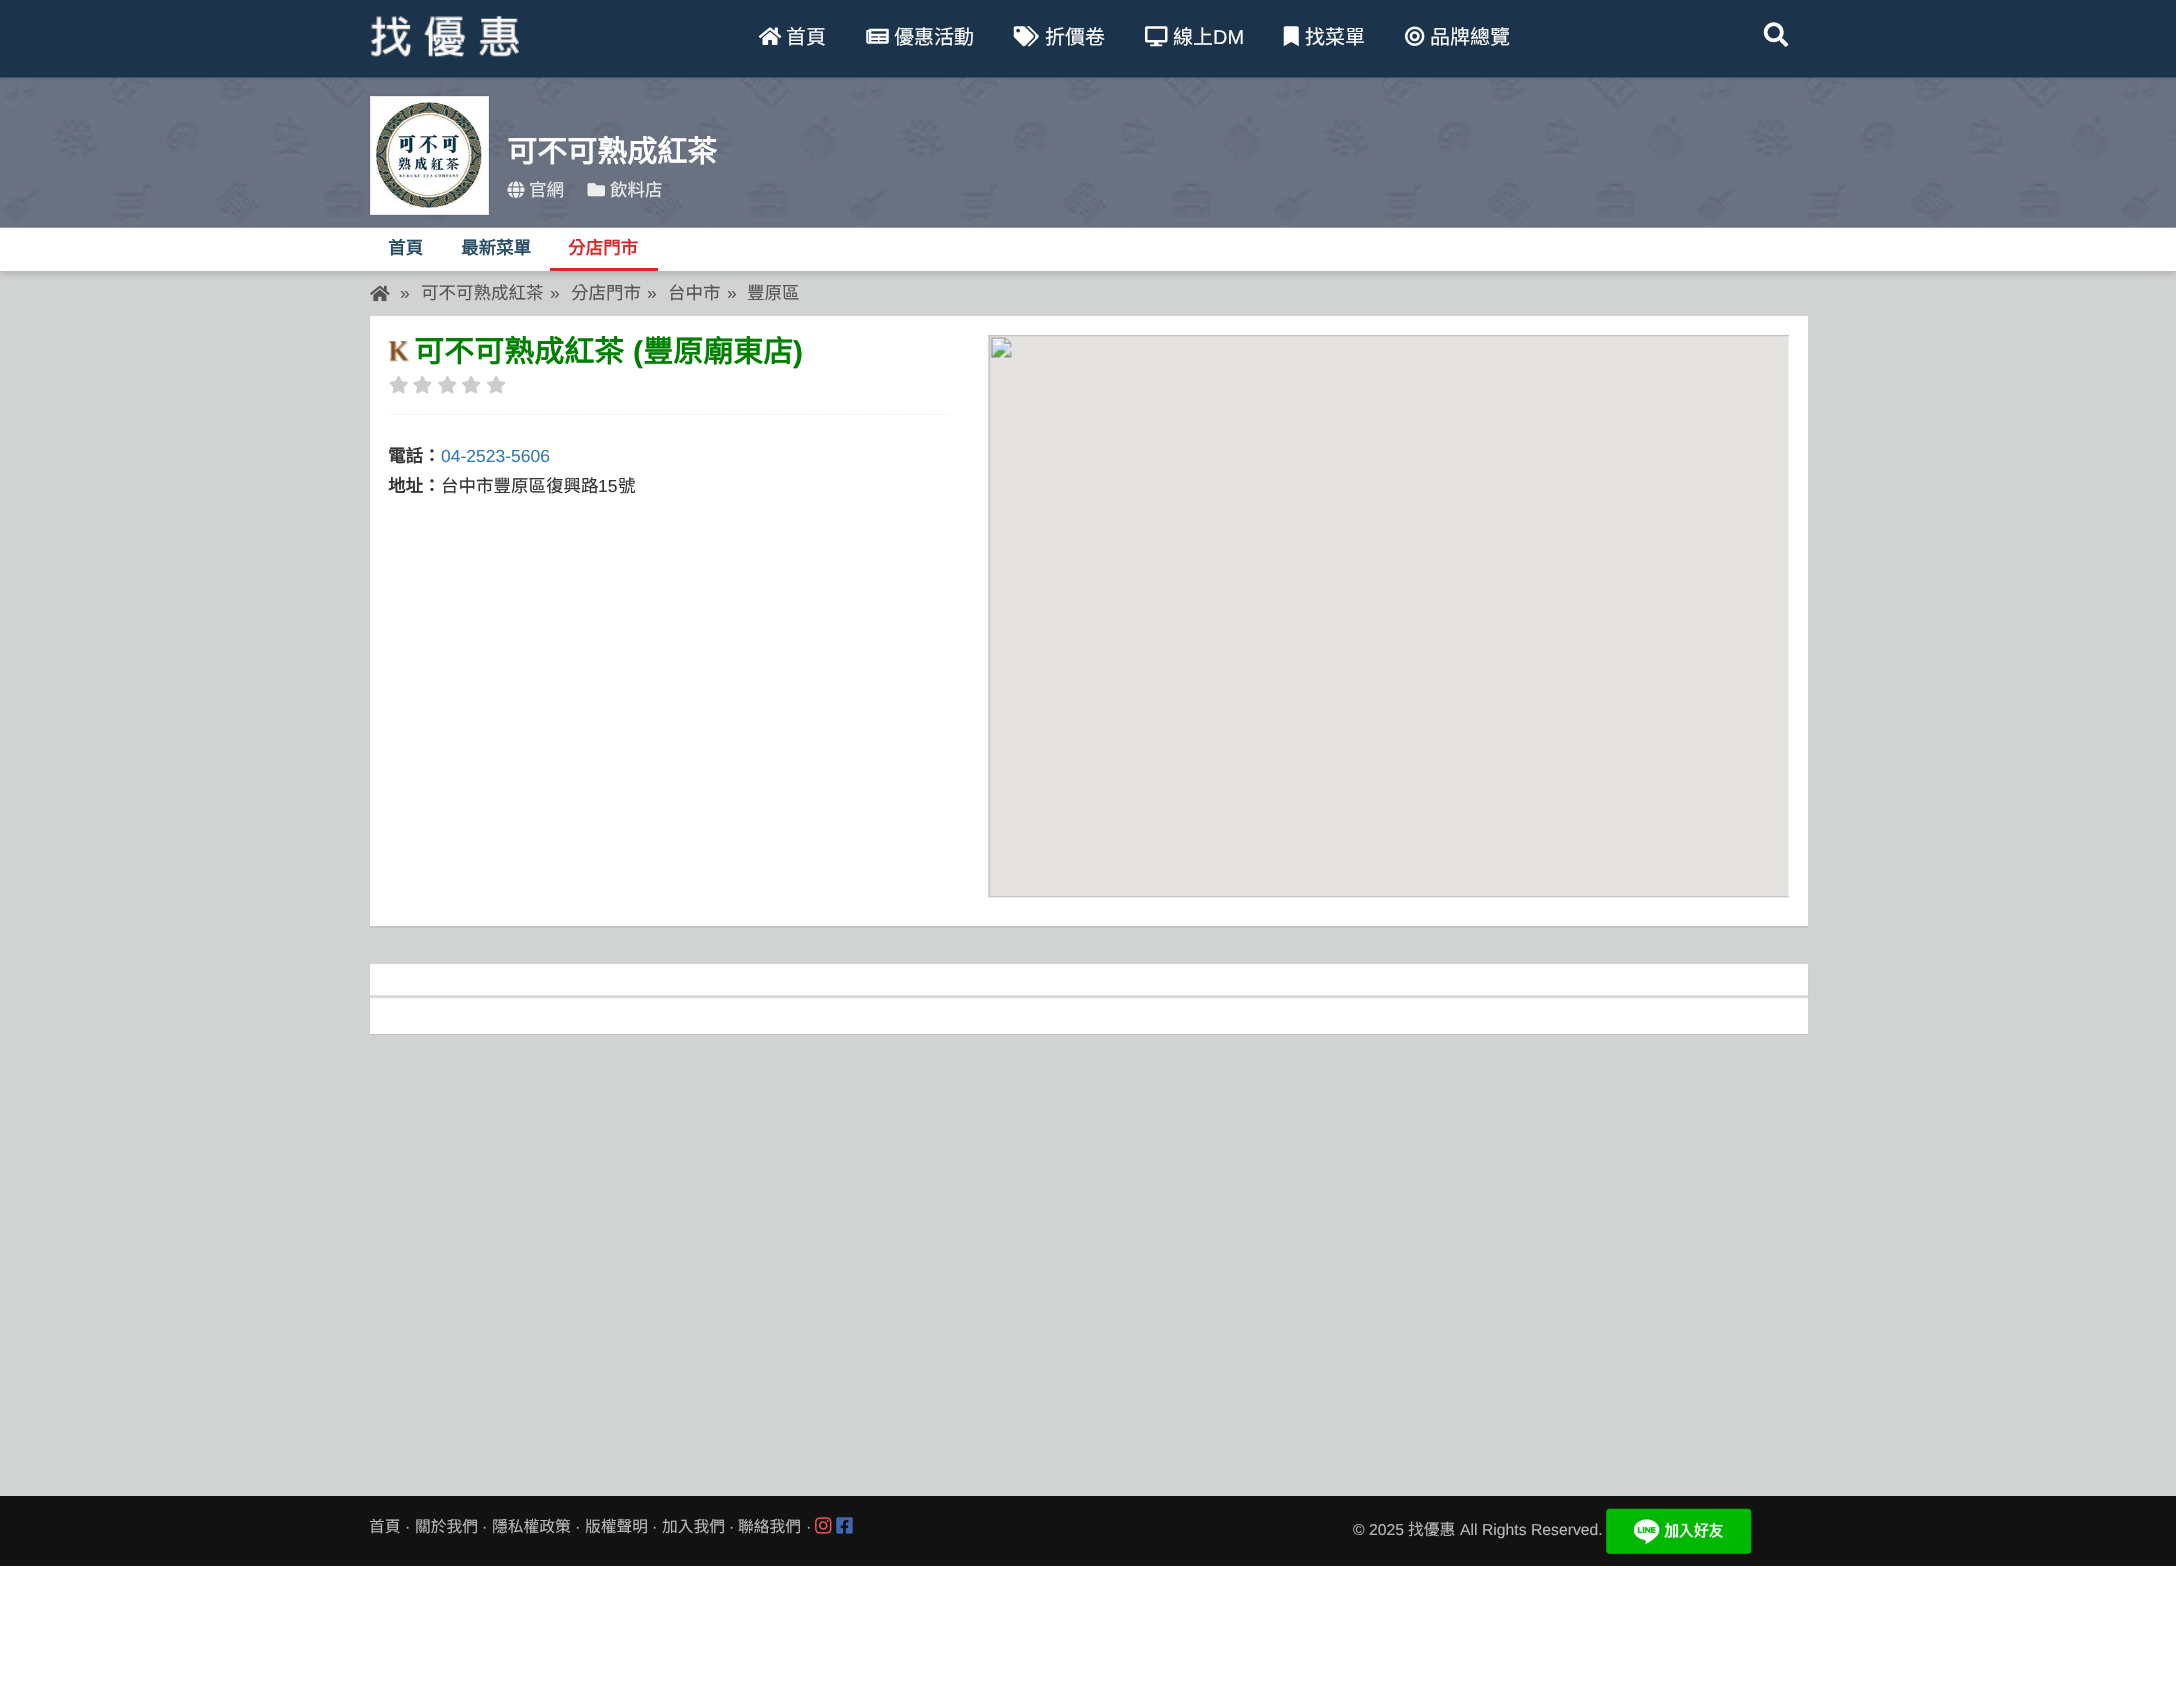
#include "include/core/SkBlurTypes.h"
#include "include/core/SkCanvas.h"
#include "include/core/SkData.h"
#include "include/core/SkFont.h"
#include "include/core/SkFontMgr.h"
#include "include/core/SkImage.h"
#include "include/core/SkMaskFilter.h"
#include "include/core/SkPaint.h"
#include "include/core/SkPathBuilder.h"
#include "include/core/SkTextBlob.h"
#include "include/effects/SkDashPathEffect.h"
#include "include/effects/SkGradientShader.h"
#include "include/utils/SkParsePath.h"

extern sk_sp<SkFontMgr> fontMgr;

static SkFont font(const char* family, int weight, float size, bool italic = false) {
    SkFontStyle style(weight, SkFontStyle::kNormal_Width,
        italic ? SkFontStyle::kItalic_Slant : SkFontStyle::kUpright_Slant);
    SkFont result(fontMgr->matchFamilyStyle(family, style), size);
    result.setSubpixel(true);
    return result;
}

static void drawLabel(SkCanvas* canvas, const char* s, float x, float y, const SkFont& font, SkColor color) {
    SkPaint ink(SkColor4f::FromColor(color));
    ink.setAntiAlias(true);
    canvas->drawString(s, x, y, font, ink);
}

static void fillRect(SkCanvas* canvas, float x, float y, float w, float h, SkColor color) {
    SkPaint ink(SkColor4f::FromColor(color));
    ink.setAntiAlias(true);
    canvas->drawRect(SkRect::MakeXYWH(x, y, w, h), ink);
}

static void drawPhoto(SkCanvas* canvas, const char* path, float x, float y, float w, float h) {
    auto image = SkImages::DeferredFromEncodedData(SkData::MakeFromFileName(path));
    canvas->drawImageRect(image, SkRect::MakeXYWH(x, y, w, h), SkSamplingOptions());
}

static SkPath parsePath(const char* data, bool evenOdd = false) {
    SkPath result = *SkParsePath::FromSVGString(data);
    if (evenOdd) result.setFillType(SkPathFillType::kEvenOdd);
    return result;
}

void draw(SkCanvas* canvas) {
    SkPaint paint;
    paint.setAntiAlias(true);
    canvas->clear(0xFFFFFFFF);
    fillRect(canvas, 0, 227, 2176, 1269, 0xFFD1D2D2);
    fillRect(canvas, 0, 0, 2176, 78, 0xFF1B334B);
    drawPhoto(canvas, "assets/img1.png", 371, 16, 148, 41);
    drawPhoto(canvas, "assets/img2.png", 758, 27, 24, 18);
    SkFont font1 = font("Noto Sans CJK TC", 400, 20);
    drawLabel(canvas, "首頁", 786, 44, font1, 0xFFFFFFFF);
    drawPhoto(canvas, "assets/img3.png", 866, 28, 23, 16);
    drawLabel(canvas, "優惠活動", 894, 44, font1, 0xFFFFFFFF);
    drawPhoto(canvas, "assets/img4.png", 1013, 26, 26, 21);
    drawLabel(canvas, "折價卷", 1045, 44, font1, 0xFFFFFFFF);
    drawPhoto(canvas, "assets/img5.png", 1145, 26, 23, 21);
    drawLabel(canvas, "線上", 1173, 44, font1, 0xFFFFFFFF);
    SkFont font2 = font("Liberation Sans", 400, 20);
    drawLabel(canvas, "DM", 1213, 44, font2, 0xFFFFFFFF);
    drawPhoto(canvas, "assets/img6.png", 1283, 26, 16, 21);
    drawLabel(canvas, "找菜單", 1305, 44, font1, 0xFFFFFFFF);
    drawPhoto(canvas, "assets/img7.png", 1405, 26, 20, 20);
    drawLabel(canvas, "品牌總覽", 1430, 44, font1, 0xFFFFFFFF);
    drawPhoto(canvas, "assets/img8.png", 1763, 22, 26, 25);
    drawPhoto(canvas, "assets/img9.png", 0, 77, 2176, 151);
    paint.setColor(0x24000000);
    paint.setMaskFilter(SkMaskFilter::MakeBlur(kNormal_SkBlurStyle, 1));
    canvas->drawRect(SkRect::MakeXYWH(370, 96, 119, 119), paint);
    paint.setMaskFilter(nullptr);
    paint.setColor(0xFFFFFFFF);
    canvas->drawRect(SkRect::MakeXYWH(370.5f, 96.5f, 118, 118), paint);
    paint.setStroke(true);
    paint.setStrokeWidth(1);
    paint.setColor(0xFFE9EAED);
    canvas->drawRect(SkRect::MakeXYWH(370.5f, 96.5f, 118, 118), paint);
    drawPhoto(canvas, "assets/img10.png", 376, 102, 106, 106);
    SkFont font3 = font("Noto Sans CJK TC", 700, 30);
    drawLabel(canvas, "可不可熟成紅茶", 507, 162, font3, 0xFFFFFFFF);
    drawPhoto(canvas, "assets/img11.png", 507, 181, 18, 18);
    SkFont font4 = font("Noto Sans CJK TC", 400, 17.5f);
    drawLabel(canvas, "官網", 529, 196, font4, 0xFFEEEEEE);
    drawPhoto(canvas, "assets/img12.png", 587, 183, 18, 14);
    drawLabel(canvas, "飲料店", 610, 196, font4, 0xFFEEEEEE);
    paint.setStroke(false);
    paint.setColor(0x26000000);
    paint.setMaskFilter(SkMaskFilter::MakeBlur(kNormal_SkBlurStyle, 3));
    canvas->drawRect(SkRect::MakeXYWH(0, 230, 2176, 44), paint);
    paint.setMaskFilter(nullptr);
    fillRect(canvas, 0, 228, 2176, 43, 0xFFFFFFFF);
    SkFont font5 = font("Noto Sans CJK TC", 700, 17.5f);
    drawLabel(canvas, "首頁", 388, 254, font5, 0xFF274D64);
    drawLabel(canvas, "最新菜單", 461, 254, font5, 0xFF274D64);
    fillRect(canvas, 550, 268, 108, 3, 0xFFD72825);
    drawLabel(canvas, "分店門市", 568, 254, font5, 0xFFD72825);
    drawPhoto(canvas, "assets/img13.png", 370, 285, 20, 17);
    SkFont font6 = font("Liberation Sans", 400, 17.5f);
    drawLabel(canvas, "»", 400, 299, font6, 0xFF555555);
    drawLabel(canvas, "可不可熟成紅茶", 421, 299, font4, 0xFF555555);
    drawLabel(canvas, "»", 550, 299, font6, 0xFF555555);
    drawLabel(canvas, "分店門市", 571, 299, font4, 0xFF555555);
    drawLabel(canvas, "»", 647, 299, font6, 0xFF555555);
    drawLabel(canvas, "台中市", 668, 299, font4, 0xFF555555);
    drawLabel(canvas, "»", 727, 299, font6, 0xFF555555);
    drawLabel(canvas, "豐原區", 747, 299, font4, 0xFF555555);
    paint.setColor(0x80B4B4B4);
    paint.setMaskFilter(SkMaskFilter::MakeBlur(kNormal_SkBlurStyle, 0.5f));
    canvas->drawRect(SkRect::MakeXYWH(370, 318, 1438, 610), paint);
    paint.setMaskFilter(nullptr);
    fillRect(canvas, 370, 316, 1438, 610, 0xFFFFFFFF);
    drawPhoto(canvas, "assets/img14.png", 388, 341, 21, 21);
    drawLabel(canvas, "可不可熟成紅茶", 414, 362, font3, 0xFF008000);
    SkFont font7 = font("Liberation Sans", 700, 30);
    drawLabel(canvas, "(", 633, 362, font7, 0xFF008000);
    drawLabel(canvas, "豐原廟東店", 643, 362, font3, 0xFF008000);
    drawLabel(canvas, ")", 793, 362, font7, 0xFF008000);
    drawPhoto(canvas, "assets/img15.png", 389, 376, 19, 18);
    drawPhoto(canvas, "assets/img16.png", 413, 376, 19, 18);
    drawPhoto(canvas, "assets/img16.png", 438, 376, 19, 18);
    drawPhoto(canvas, "assets/img17.png", 462, 376, 19, 18);
    drawPhoto(canvas, "assets/img17.png", 487, 376, 19, 18);
    paint.setStroke(true);
    paint.setStrokeWidth(1.2f);
    paint.setColor(0xFFEEEEEE);
    paint.setPathEffect(SkDashPathEffect::Make({{1.25f, 1.25f}}, 0));
    canvas->drawPath(parsePath("M389 414.5H950"), paint);
    paint.setPathEffect(nullptr);
    drawLabel(canvas, "電話：", 388, 462, font5, 0xFF333333);
    drawLabel(canvas, "04-2523-5606", 441, 462, font6, 0xFF337AB7);
    drawLabel(canvas, "地址：", 388, 492, font5, 0xFF333333);
    drawLabel(canvas, "台中市豐原區復興路", 441, 492, font4, 0xFF333333);
    drawLabel(canvas, "15", 598, 492, font6, 0xFF333333);
    drawLabel(canvas, "號", 618, 492, font4, 0xFF333333);
    drawPhoto(canvas, "assets/img18.png", 987, 335, 802, 563);
    paint.setStroke(false);
    paint.setColor(0x80B4B4B4);
    paint.setMaskFilter(SkMaskFilter::MakeBlur(kNormal_SkBlurStyle, 0.5f));
    canvas->drawRect(SkRect::MakeXYWH(370, 965, 1438, 70), paint);
    paint.setMaskFilter(nullptr);
    fillRect(canvas, 370, 996, 1438, 38, 0xFFFFFFFF);
    paint.setMaskFilter(SkMaskFilter::MakeBlur(kNormal_SkBlurStyle, 0.5f));
    canvas->drawRect(SkRect::MakeXYWH(370, 965, 1438, 33), paint);
    paint.setMaskFilter(nullptr);
    fillRect(canvas, 370, 964, 1438, 31, 0xFFFFFFFF);
    fillRect(canvas, 370, 995, 1438, 1, 0xFFDFDFDF);
    fillRect(canvas, 0, 1496, 2176, 70, 0xFF121212);
    SkFont font8 = font("Noto Sans CJK TC", 400, 15.75f);
    drawLabel(canvas, "首頁", 369, 1532, font8, 0xFFB9B9B9);
    SkFont font9 = font("Liberation Sans", 400, 15.75f);
    drawLabel(canvas, "·", 405, 1532, font9, 0xFFB9B9B9);
    drawLabel(canvas, "關於我們", 415, 1532, font8, 0xFFB9B9B9);
    drawLabel(canvas, "·", 482, 1532, font9, 0xFFB9B9B9);
    drawLabel(canvas, "隱私權政策", 492, 1532, font8, 0xFFB9B9B9);
    drawLabel(canvas, "·", 575, 1532, font9, 0xFFB9B9B9);
    drawLabel(canvas, "版權聲明", 585, 1532, font8, 0xFFB9B9B9);
    drawLabel(canvas, "·", 652, 1532, font9, 0xFFB9B9B9);
    drawLabel(canvas, "加入我們", 662, 1532, font8, 0xFFB9B9B9);
    drawLabel(canvas, "·", 729, 1532, font9, 0xFFB9B9B9);
    drawLabel(canvas, "聯絡我們", 738, 1532, font8, 0xFFB9B9B9);
    drawLabel(canvas, "·", 806, 1532, font9, 0xFFB9B9B9);
    drawPhoto(canvas, "assets/img19.png", 815, 1517, 17, 17);
    drawPhoto(canvas, "assets/img20.png", 836, 1517, 17, 17);
    drawLabel(canvas, "© 2025", 1353, 1535, font9, 0xFFB9B9B9);
    drawLabel(canvas, "找優惠", 1408, 1535, font8, 0xFFB9B9B9);
    drawLabel(canvas, "All Rights Reserved.", 1460, 1535, font9, 0xFFB9B9B9);
    drawPhoto(canvas, "assets/img21.png", 1606, 1508, 146, 46);
}
